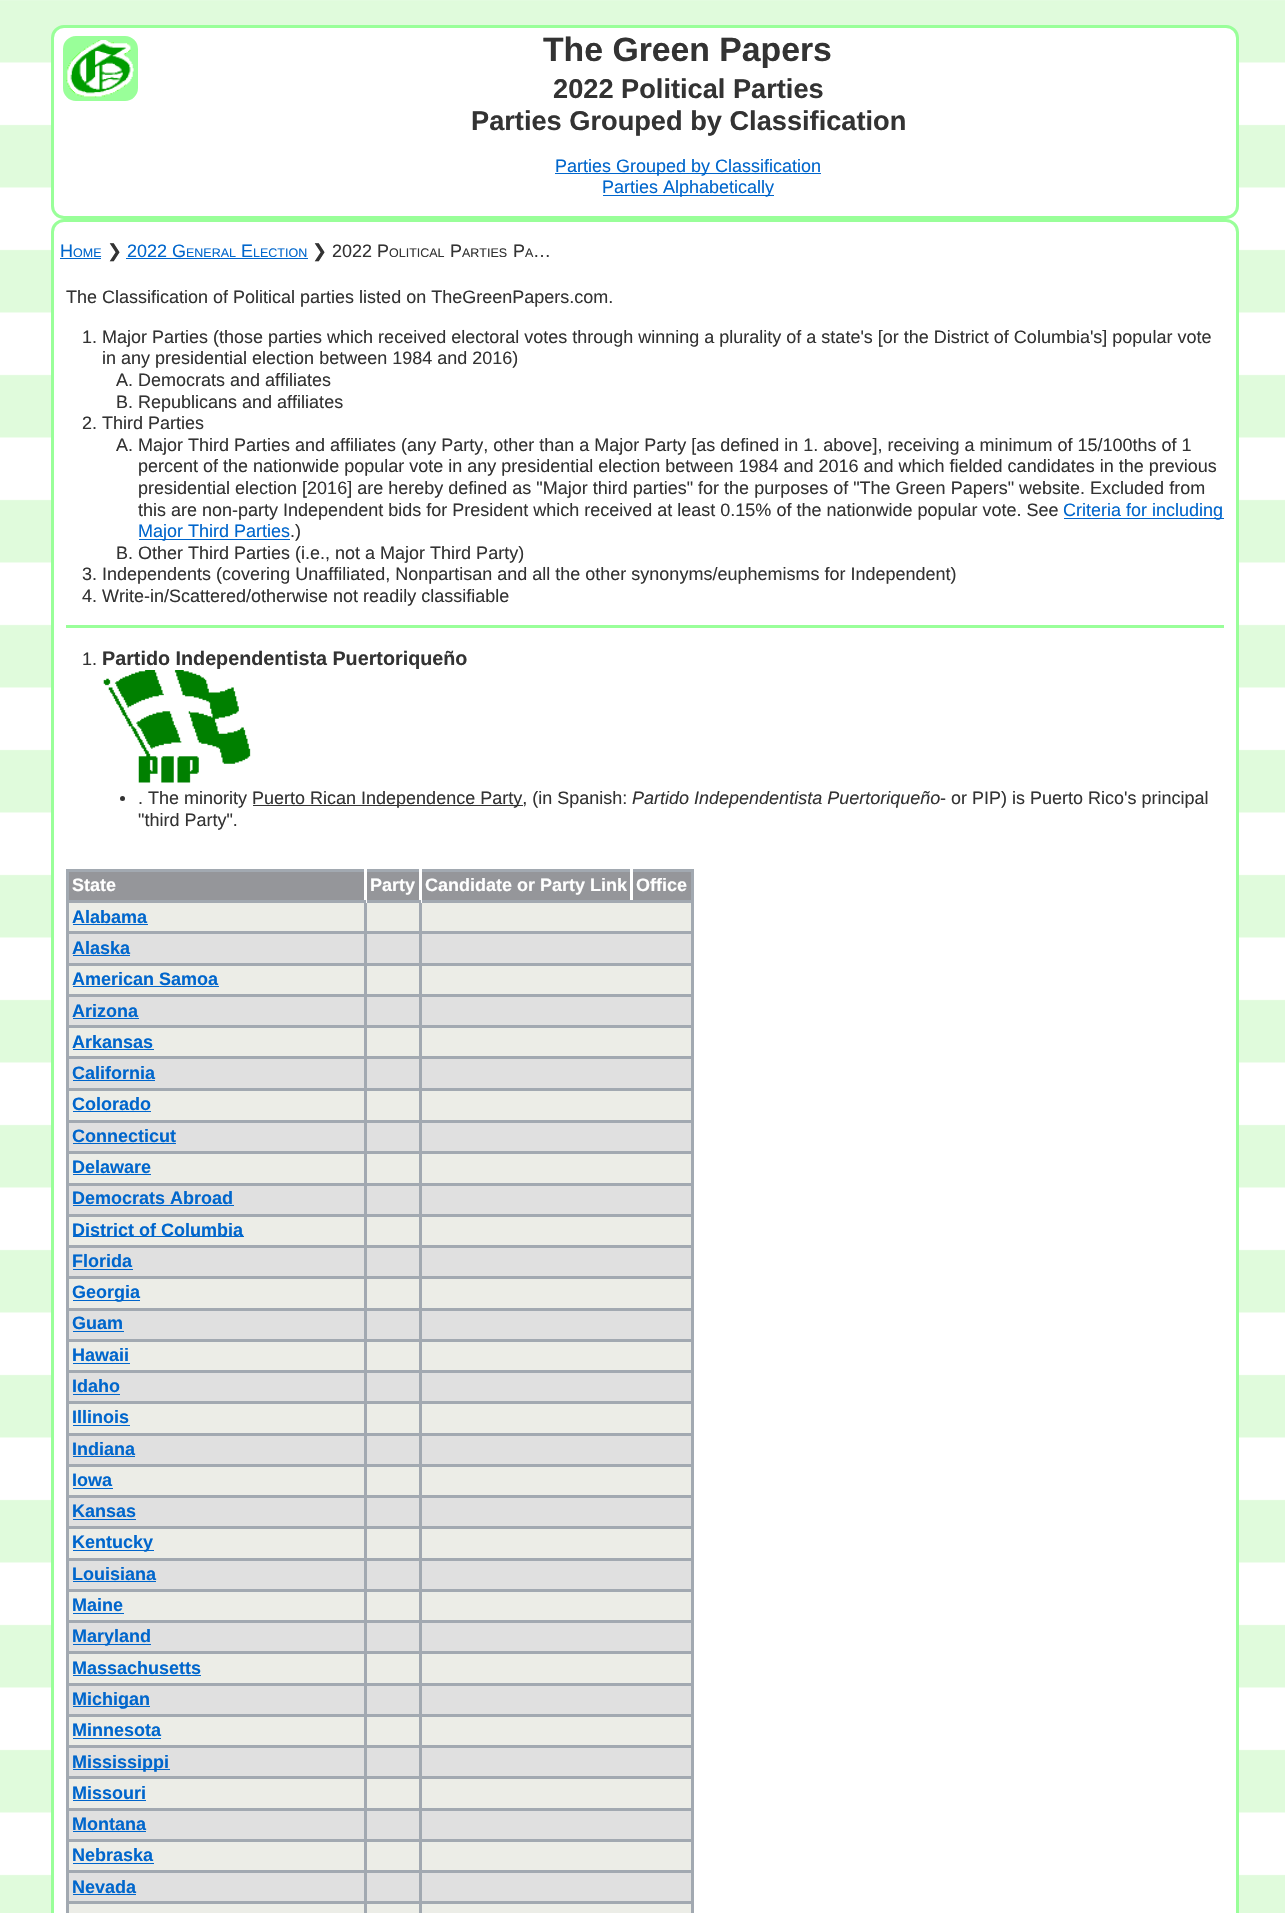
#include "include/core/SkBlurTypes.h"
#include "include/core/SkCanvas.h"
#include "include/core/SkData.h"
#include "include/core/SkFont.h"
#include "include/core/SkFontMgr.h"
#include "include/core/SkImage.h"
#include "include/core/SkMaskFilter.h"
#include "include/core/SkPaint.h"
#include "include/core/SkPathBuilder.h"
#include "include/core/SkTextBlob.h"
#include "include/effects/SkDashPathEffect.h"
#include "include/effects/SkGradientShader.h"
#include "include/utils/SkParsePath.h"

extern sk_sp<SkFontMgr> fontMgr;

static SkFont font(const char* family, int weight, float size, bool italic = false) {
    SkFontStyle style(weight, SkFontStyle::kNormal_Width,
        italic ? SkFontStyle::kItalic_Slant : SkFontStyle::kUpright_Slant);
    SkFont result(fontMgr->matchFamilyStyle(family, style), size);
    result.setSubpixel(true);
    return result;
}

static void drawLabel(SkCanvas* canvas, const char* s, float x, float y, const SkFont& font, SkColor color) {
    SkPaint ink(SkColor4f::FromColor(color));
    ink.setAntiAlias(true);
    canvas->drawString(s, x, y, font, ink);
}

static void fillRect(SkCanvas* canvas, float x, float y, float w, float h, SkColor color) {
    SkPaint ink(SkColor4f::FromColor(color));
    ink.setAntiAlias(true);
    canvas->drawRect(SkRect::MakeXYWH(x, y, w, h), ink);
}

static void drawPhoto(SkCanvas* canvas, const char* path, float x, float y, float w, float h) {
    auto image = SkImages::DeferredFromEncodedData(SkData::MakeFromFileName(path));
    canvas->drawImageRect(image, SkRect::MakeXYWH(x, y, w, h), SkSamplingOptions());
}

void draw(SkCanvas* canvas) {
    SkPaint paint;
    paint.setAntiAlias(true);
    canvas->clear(0xFFFFFFFF);
    drawPhoto(canvas, "assets/img1.png", 0, 0, 1285, 1913);
    paint.setColor(0xFFFFFFFF);
    canvas->drawRoundRect(SkRect::MakeXYWH(52.5f, 26.5f, 1185, 191), 11.5f, 11.5f, paint);
    paint.setStroke(true);
    paint.setStrokeWidth(3);
    paint.setColor(0xFF99FF99);
    canvas->drawRoundRect(SkRect::MakeXYWH(52.5f, 26.5f, 1185, 191), 11.5f, 11.5f, paint);
    paint.setStroke(false);
    canvas->drawRoundRect(SkRect::MakeXYWH(65, 38, 71, 61), 11, 11, paint);
    paint.setStroke(true);
    paint.setStrokeWidth(4);
    canvas->drawRoundRect(SkRect::MakeXYWH(65, 38, 71, 61), 11, 11, paint);
    drawPhoto(canvas, "assets/img2.png", 66, 40, 68, 58);
    SkFont font1 = font("Liberation Sans", 700, 33.75f);
    drawLabel(canvas, "The Green Papers", 543, 61, font1, 0xFF333333);
    SkFont font2 = font("Liberation Sans", 700, 27.2f);
    drawLabel(canvas, "2022 Political Parties", 553, 98, font2, 0xFF333333);
    drawLabel(canvas, "Parties Grouped by Classification", 471, 130, font2, 0xFF333333);
    fillRect(canvas, 555, 173, 266, 1, 0xFF0066CC);
    SkFont font3 = font("Liberation Sans", 400, 18);
    drawLabel(canvas, "Parties Grouped by Classification", 555, 172, font3, 0xFF0066CC);
    fillRect(canvas, 603, 195, 171, 1, 0xFF0066CC);
    drawLabel(canvas, "Parties Alphabetically", 602, 193, font3, 0xFF0066CC);
    paint.setStroke(false);
    paint.setColor(0xFFFFFFFF);
    canvas->drawRoundRect(SkRect::MakeXYWH(52.5f, 220.5f, 1185, 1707), 11.5f, 11.5f, paint);
    paint.setStroke(true);
    paint.setStrokeWidth(3);
    paint.setColor(0xFF99FF99);
    canvas->drawRoundRect(SkRect::MakeXYWH(52.5f, 220.5f, 1185, 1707), 11.5f, 11.5f, paint);
    drawLabel(canvas, "H", 60, 257, font3, 0xFF0066CC);
    SkFont font4 = font("Liberation Sans", 400, 12.5f);
    drawLabel(canvas, "OME", 73, 257, font4, 0xFF0066CC);
    fillRect(canvas, 60, 258, 41, 1, 0xFF0066CC);
    SkFont font5 = font("DejaVu Sans", 400, 18);
    drawLabel(canvas, "❯", 107, 257, font5, 0xFF333333);
    drawLabel(canvas, "2022 G", 127, 257, font3, 0xFF0066CC);
    drawLabel(canvas, "ENERAL", 186, 257, font4, 0xFF0066CC);
    drawLabel(canvas, "E", 241, 257, font3, 0xFF0066CC);
    drawLabel(canvas, "LECTION", 253, 257, font4, 0xFF0066CC);
    fillRect(canvas, 126, 258, 182, 1, 0xFF0066CC);
    drawLabel(canvas, "❯", 312, 257, font5, 0xFF333333);
    drawLabel(canvas, "2022 P", 332, 257, font3, 0xFF333333);
    drawLabel(canvas, "OLITICAL", 389, 257, font4, 0xFF333333);
    drawLabel(canvas, "P", 450, 257, font3, 0xFF333333);
    drawLabel(canvas, "ARTIES", 462, 257, font4, 0xFF333333);
    drawLabel(canvas, "P", 513, 257, font3, 0xFF333333);
    drawLabel(canvas, "A", 525, 257, font4, 0xFF333333);
    drawLabel(canvas, "…", 533, 257, font3, 0xFF333333);
    drawLabel(canvas, "The Classification of Political parties listed on TheGreenPapers.com.", 66, 303, font3, 0xFF333333);
    drawLabel(canvas, "1. Major Parties (those parties which received electoral votes through winning a plurality of a state's [or the District of Columbia's] popular vote", 82, 343, font3, 0xFF333333);
    drawLabel(canvas, "in any presidential election between 1984 and 2016)", 102, 364, font3, 0xFF333333);
    drawLabel(canvas, "A. Democrats and affiliates", 116, 386, font3, 0xFF333333);
    drawLabel(canvas, "B. Republicans and affiliates", 116, 408, font3, 0xFF333333);
    drawLabel(canvas, "2. Third Parties", 82, 429, font3, 0xFF333333);
    drawLabel(canvas, "A. Major Third Parties and affiliates (any Party, other than a Major Party [as defined in 1. above], receiving a minimum of 15/100ths of 1", 116, 451, font3, 0xFF333333);
    drawLabel(canvas, "percent of the nationwide popular vote in any presidential election between 1984 and 2016 and which fielded candidates in the previous", 138, 472, font3, 0xFF333333);
    drawLabel(canvas, "presidential election [2016] are hereby defined as \"Major third parties\" for the purposes of \"The Green Papers\" website. Excluded from", 138, 494, font3, 0xFF333333);
    drawLabel(canvas, "this are non-party Independent bids for President which received at least 0.15% of the nationwide popular vote. See", 138, 516, font3, 0xFF333333);
    fillRect(canvas, 1064, 518, 160, 1, 0xFF0066CC);
    drawLabel(canvas, "Criteria for including", 1063, 516, font3, 0xFF0066CC);
    fillRect(canvas, 139, 539, 151, 1, 0xFF0066CC);
    drawLabel(canvas, "Major Third Parties", 138, 537, font3, 0xFF0066CC);
    drawLabel(canvas, ".)", 290, 537, font3, 0xFF333333);
    drawLabel(canvas, "B. Other Third Parties (i.e., not a Major Third Party)", 116, 559, font3, 0xFF333333);
    drawLabel(canvas, "3. Independents (covering Unaffiliated, Nonpartisan and all the other synonyms/euphemisms for Independent)", 82, 580, font3, 0xFF333333);
    drawLabel(canvas, "4. Write-in/Scattered/otherwise not readily classifiable", 82, 602, font3, 0xFF333333);
    fillRect(canvas, 66, 625, 1158, 3, 0xFF99FF99);
    drawLabel(canvas, "1.", 82, 665, font3, 0xFF333333);
    SkFont font6 = font("Liberation Sans", 700, 19.75f);
    drawLabel(canvas, "Partido Independentista Puertoriqueño", 102, 665, font6, 0xFF333333);
    drawPhoto(canvas, "assets/img3.png", 103, 670, 148, 113);
    paint.setStroke(false);
    paint.setColor(0xFF333333);
    canvas->drawCircle(122.5f, 798.5f, 2.5f, paint);
    drawLabel(canvas, ". The minority", 138, 804, font3, 0xFF333333);
    fillRect(canvas, 253, 805, 270, 1, 0xFF333333);
    drawLabel(canvas, "Puerto Rican Independence Party, (in Spanish:", 252, 804, font3, 0xFF333333);
    SkFont font7 = font("Liberation Sans", 400, 18, true);
    drawLabel(canvas, "Partido Independentista Puertoriqueño", 632, 804, font7, 0xFF333333);
    drawLabel(canvas, "- or PIP) is Puerto Rico's principal", 940, 804, font3, 0xFF333333);
    drawLabel(canvas, "\"third Party\".", 138, 826, font3, 0xFF333333);
    fillRect(canvas, 364, 869, 330, 3, 0xFFA2A9B1);
    fillRect(canvas, 691, 869, 3, 1044, 0xFFA2A9B1);
    fillRect(canvas, 66, 869, 3, 1044, 0xFFA2A9B1);
    fillRect(canvas, 69, 872, 295, 28, 0xFF95969A);
    fillRect(canvas, 66, 869, 300, 3, 0xFFA2A9B1);
    fillRect(canvas, 419, 931, 275, 3, 0xFFA2A9B1);
    fillRect(canvas, 419, 963, 275, 3, 0xFFA2A9B1);
    fillRect(canvas, 419, 994, 275, 3, 0xFFA2A9B1);
    fillRect(canvas, 419, 1025, 275, 3, 0xFFA2A9B1);
    fillRect(canvas, 419, 1056, 275, 3, 0xFFA2A9B1);
    fillRect(canvas, 419, 1088, 275, 3, 0xFFA2A9B1);
    fillRect(canvas, 419, 1120, 275, 3, 0xFFA2A9B1);
    fillRect(canvas, 419, 1151, 275, 3, 0xFFA2A9B1);
    fillRect(canvas, 419, 1183, 275, 3, 0xFFA2A9B1);
    fillRect(canvas, 419, 1214, 275, 3, 0xFFA2A9B1);
    fillRect(canvas, 419, 1245, 275, 3, 0xFFA2A9B1);
    fillRect(canvas, 419, 1276, 275, 3, 0xFFA2A9B1);
    fillRect(canvas, 419, 1308, 275, 3, 0xFFA2A9B1);
    fillRect(canvas, 419, 1339, 275, 3, 0xFFA2A9B1);
    fillRect(canvas, 419, 1370, 275, 3, 0xFFA2A9B1);
    fillRect(canvas, 419, 1401, 275, 3, 0xFFA2A9B1);
    fillRect(canvas, 419, 1433, 275, 3, 0xFFA2A9B1);
    fillRect(canvas, 419, 1464, 275, 3, 0xFFA2A9B1);
    fillRect(canvas, 419, 1495, 275, 3, 0xFFA2A9B1);
    fillRect(canvas, 419, 1526, 275, 3, 0xFFA2A9B1);
    fillRect(canvas, 419, 1558, 275, 3, 0xFFA2A9B1);
    fillRect(canvas, 419, 1589, 275, 3, 0xFFA2A9B1);
    fillRect(canvas, 419, 1620, 275, 3, 0xFFA2A9B1);
    fillRect(canvas, 419, 1651, 275, 3, 0xFFA2A9B1);
    fillRect(canvas, 419, 1683, 275, 3, 0xFFA2A9B1);
    fillRect(canvas, 419, 1714, 275, 3, 0xFFA2A9B1);
    fillRect(canvas, 419, 1745, 275, 3, 0xFFA2A9B1);
    fillRect(canvas, 419, 1776, 275, 3, 0xFFA2A9B1);
    fillRect(canvas, 419, 1808, 275, 3, 0xFFA2A9B1);
    fillRect(canvas, 419, 1839, 275, 3, 0xFFA2A9B1);
    fillRect(canvas, 419, 1870, 275, 3, 0xFFA2A9B1);
    fillRect(canvas, 419, 1901, 275, 3, 0xFFA2A9B1);
    fillRect(canvas, 419, 1901, 3, 12, 0xFFA2A9B1);
    fillRect(canvas, 364, 1901, 57, 3, 0xFFA2A9B1);
    fillRect(canvas, 419, 1870, 3, 34, 0xFFA2A9B1);
    fillRect(canvas, 364, 1870, 57, 3, 0xFFA2A9B1);
    fillRect(canvas, 419, 1839, 3, 34, 0xFFA2A9B1);
    fillRect(canvas, 364, 1839, 57, 3, 0xFFA2A9B1);
    fillRect(canvas, 419, 1808, 3, 33, 0xFFA2A9B1);
    fillRect(canvas, 364, 1808, 57, 3, 0xFFA2A9B1);
    fillRect(canvas, 419, 1776, 3, 34, 0xFFA2A9B1);
    fillRect(canvas, 364, 1776, 57, 3, 0xFFA2A9B1);
    fillRect(canvas, 419, 1745, 3, 34, 0xFFA2A9B1);
    fillRect(canvas, 364, 1745, 57, 3, 0xFFA2A9B1);
    fillRect(canvas, 419, 1714, 3, 34, 0xFFA2A9B1);
    fillRect(canvas, 364, 1714, 57, 3, 0xFFA2A9B1);
    fillRect(canvas, 419, 1683, 3, 33, 0xFFA2A9B1);
    fillRect(canvas, 364, 1683, 57, 3, 0xFFA2A9B1);
    fillRect(canvas, 419, 1651, 3, 34, 0xFFA2A9B1);
    fillRect(canvas, 364, 1651, 57, 3, 0xFFA2A9B1);
    fillRect(canvas, 419, 1620, 3, 34, 0xFFA2A9B1);
    fillRect(canvas, 364, 1620, 57, 3, 0xFFA2A9B1);
    fillRect(canvas, 419, 1589, 3, 34, 0xFFA2A9B1);
    fillRect(canvas, 364, 1589, 57, 3, 0xFFA2A9B1);
    fillRect(canvas, 419, 1558, 3, 33, 0xFFA2A9B1);
    fillRect(canvas, 364, 1558, 57, 3, 0xFFA2A9B1);
    fillRect(canvas, 419, 1526, 3, 34, 0xFFA2A9B1);
    fillRect(canvas, 364, 1526, 57, 3, 0xFFA2A9B1);
    fillRect(canvas, 419, 1495, 3, 34, 0xFFA2A9B1);
    fillRect(canvas, 364, 1495, 57, 3, 0xFFA2A9B1);
    fillRect(canvas, 419, 1464, 3, 34, 0xFFA2A9B1);
    fillRect(canvas, 364, 1464, 57, 3, 0xFFA2A9B1);
    fillRect(canvas, 419, 1433, 3, 33, 0xFFA2A9B1);
    fillRect(canvas, 364, 1433, 57, 3, 0xFFA2A9B1);
    fillRect(canvas, 419, 1401, 3, 34, 0xFFA2A9B1);
    fillRect(canvas, 364, 1401, 57, 3, 0xFFA2A9B1);
    fillRect(canvas, 419, 1370, 3, 34, 0xFFA2A9B1);
    fillRect(canvas, 364, 1370, 57, 3, 0xFFA2A9B1);
    fillRect(canvas, 419, 1339, 3, 34, 0xFFA2A9B1);
    fillRect(canvas, 364, 1339, 57, 3, 0xFFA2A9B1);
    fillRect(canvas, 419, 1308, 3, 33, 0xFFA2A9B1);
    fillRect(canvas, 364, 1308, 57, 3, 0xFFA2A9B1);
    fillRect(canvas, 419, 1276, 3, 34, 0xFFA2A9B1);
    fillRect(canvas, 364, 1276, 57, 3, 0xFFA2A9B1);
    fillRect(canvas, 419, 1245, 3, 34, 0xFFA2A9B1);
    fillRect(canvas, 364, 1245, 57, 3, 0xFFA2A9B1);
    fillRect(canvas, 419, 1214, 3, 34, 0xFFA2A9B1);
    fillRect(canvas, 364, 1214, 57, 3, 0xFFA2A9B1);
    fillRect(canvas, 419, 1183, 3, 33, 0xFFA2A9B1);
    fillRect(canvas, 364, 1183, 57, 3, 0xFFA2A9B1);
    fillRect(canvas, 419, 1151, 3, 34, 0xFFA2A9B1);
    fillRect(canvas, 364, 1151, 57, 3, 0xFFA2A9B1);
    fillRect(canvas, 419, 1120, 3, 34, 0xFFA2A9B1);
    fillRect(canvas, 364, 1120, 57, 3, 0xFFA2A9B1);
    fillRect(canvas, 419, 1088, 3, 35, 0xFFA2A9B1);
    fillRect(canvas, 364, 1088, 57, 3, 0xFFA2A9B1);
    fillRect(canvas, 419, 1056, 3, 34, 0xFFA2A9B1);
    fillRect(canvas, 364, 1056, 57, 3, 0xFFA2A9B1);
    fillRect(canvas, 419, 1025, 3, 34, 0xFFA2A9B1);
    fillRect(canvas, 364, 1025, 57, 3, 0xFFA2A9B1);
    fillRect(canvas, 419, 994, 3, 34, 0xFFA2A9B1);
    fillRect(canvas, 364, 994, 57, 3, 0xFFA2A9B1);
    fillRect(canvas, 419, 963, 3, 33, 0xFFA2A9B1);
    fillRect(canvas, 364, 963, 57, 3, 0xFFA2A9B1);
    fillRect(canvas, 419, 931, 3, 34, 0xFFA2A9B1);
    fillRect(canvas, 364, 931, 57, 3, 0xFFA2A9B1);
    fillRect(canvas, 419, 900, 3, 34, 0xFFA2A9B1);
    fillRect(canvas, 419, 900, 214, 3, 0xFFA2A9B1);
    fillRect(canvas, 419, 869, 3, 34, 0xFFFFFFFF);
    fillRect(canvas, 364, 1901, 3, 12, 0xFFA2A9B1);
    fillRect(canvas, 66, 1901, 300, 3, 0xFFA2A9B1);
    fillRect(canvas, 364, 1870, 3, 34, 0xFFA2A9B1);
    fillRect(canvas, 66, 1870, 300, 3, 0xFFA2A9B1);
    fillRect(canvas, 364, 1839, 3, 34, 0xFFA2A9B1);
    fillRect(canvas, 66, 1839, 300, 3, 0xFFA2A9B1);
    fillRect(canvas, 364, 1808, 3, 33, 0xFFA2A9B1);
    fillRect(canvas, 66, 1808, 300, 3, 0xFFA2A9B1);
    fillRect(canvas, 364, 1776, 3, 34, 0xFFA2A9B1);
    fillRect(canvas, 66, 1776, 300, 3, 0xFFA2A9B1);
    fillRect(canvas, 364, 1745, 3, 34, 0xFFA2A9B1);
    fillRect(canvas, 66, 1745, 300, 3, 0xFFA2A9B1);
    fillRect(canvas, 364, 1714, 3, 34, 0xFFA2A9B1);
    fillRect(canvas, 66, 1714, 300, 3, 0xFFA2A9B1);
    fillRect(canvas, 364, 1683, 3, 33, 0xFFA2A9B1);
    fillRect(canvas, 66, 1683, 300, 3, 0xFFA2A9B1);
    fillRect(canvas, 364, 1651, 3, 34, 0xFFA2A9B1);
    fillRect(canvas, 66, 1651, 300, 3, 0xFFA2A9B1);
    fillRect(canvas, 364, 1620, 3, 34, 0xFFA2A9B1);
    fillRect(canvas, 66, 1620, 300, 3, 0xFFA2A9B1);
    fillRect(canvas, 364, 1589, 3, 34, 0xFFA2A9B1);
    fillRect(canvas, 66, 1589, 300, 3, 0xFFA2A9B1);
    fillRect(canvas, 364, 1558, 3, 33, 0xFFA2A9B1);
    fillRect(canvas, 66, 1558, 300, 3, 0xFFA2A9B1);
    fillRect(canvas, 364, 1526, 3, 34, 0xFFA2A9B1);
    fillRect(canvas, 66, 1526, 300, 3, 0xFFA2A9B1);
    fillRect(canvas, 364, 1495, 3, 34, 0xFFA2A9B1);
    fillRect(canvas, 66, 1495, 300, 3, 0xFFA2A9B1);
    fillRect(canvas, 364, 1464, 3, 34, 0xFFA2A9B1);
    fillRect(canvas, 66, 1464, 300, 3, 0xFFA2A9B1);
    fillRect(canvas, 364, 1433, 3, 33, 0xFFA2A9B1);
    fillRect(canvas, 66, 1433, 300, 3, 0xFFA2A9B1);
    fillRect(canvas, 364, 1401, 3, 34, 0xFFA2A9B1);
    fillRect(canvas, 66, 1401, 300, 3, 0xFFA2A9B1);
    fillRect(canvas, 364, 1370, 3, 34, 0xFFA2A9B1);
    fillRect(canvas, 66, 1370, 300, 3, 0xFFA2A9B1);
    fillRect(canvas, 364, 1339, 3, 34, 0xFFA2A9B1);
    fillRect(canvas, 66, 1339, 300, 3, 0xFFA2A9B1);
    fillRect(canvas, 364, 1308, 3, 33, 0xFFA2A9B1);
    fillRect(canvas, 66, 1308, 300, 3, 0xFFA2A9B1);
    fillRect(canvas, 364, 1276, 3, 34, 0xFFA2A9B1);
    fillRect(canvas, 66, 1276, 300, 3, 0xFFA2A9B1);
    fillRect(canvas, 364, 1245, 3, 34, 0xFFA2A9B1);
    fillRect(canvas, 66, 1245, 300, 3, 0xFFA2A9B1);
    fillRect(canvas, 364, 1214, 3, 34, 0xFFA2A9B1);
    fillRect(canvas, 66, 1214, 300, 3, 0xFFA2A9B1);
    fillRect(canvas, 364, 1183, 3, 33, 0xFFA2A9B1);
    fillRect(canvas, 66, 1183, 300, 3, 0xFFA2A9B1);
    fillRect(canvas, 364, 1151, 3, 34, 0xFFA2A9B1);
    fillRect(canvas, 66, 1151, 300, 3, 0xFFA2A9B1);
    fillRect(canvas, 364, 1120, 3, 34, 0xFFA2A9B1);
    fillRect(canvas, 66, 1120, 300, 3, 0xFFA2A9B1);
    fillRect(canvas, 364, 1088, 3, 35, 0xFFA2A9B1);
    fillRect(canvas, 66, 1088, 300, 3, 0xFFA2A9B1);
    fillRect(canvas, 364, 1056, 3, 34, 0xFFA2A9B1);
    fillRect(canvas, 66, 1056, 300, 3, 0xFFA2A9B1);
    fillRect(canvas, 364, 1025, 3, 34, 0xFFA2A9B1);
    fillRect(canvas, 66, 1025, 300, 3, 0xFFA2A9B1);
    fillRect(canvas, 364, 994, 3, 34, 0xFFA2A9B1);
    fillRect(canvas, 66, 994, 300, 3, 0xFFA2A9B1);
    fillRect(canvas, 364, 963, 3, 33, 0xFFA2A9B1);
    fillRect(canvas, 66, 963, 300, 3, 0xFFA2A9B1);
    fillRect(canvas, 364, 931, 3, 34, 0xFFA2A9B1);
    fillRect(canvas, 66, 931, 300, 3, 0xFFA2A9B1);
    fillRect(canvas, 364, 900, 3, 34, 0xFFA2A9B1);
    fillRect(canvas, 364, 900, 57, 3, 0xFFA2A9B1);
    fillRect(canvas, 364, 869, 3, 34, 0xFFFFFFFF);
    fillRect(canvas, 66, 900, 300, 3, 0xFFA2A9B1);
    SkFont font8 = font("Liberation Sans", 700, 18);
    drawLabel(canvas, "State", 72, 891, font8, 0xFFFFFFFF);
    fillRect(canvas, 367, 872, 52, 28, 0xFF95969A);
    drawLabel(canvas, "Party", 370, 891, font8, 0xFFFFFFFF);
    fillRect(canvas, 422, 872, 208, 28, 0xFF95969A);
    fillRect(canvas, 630, 869, 3, 3, 0xFFFFFFFF);
    drawLabel(canvas, "Candidate or Party Link", 425, 891, font8, 0xFFFFFFFF);
    fillRect(canvas, 633, 872, 58, 28, 0xFF95969A);
    drawLabel(canvas, "Office", 636, 891, font8, 0xFFFFFFFF);
    fillRect(canvas, 69, 903, 295, 28, 0xFFECEDE7);
    drawLabel(canvas, "Alabama", 72, 923, font8, 0xFF0066CC);
    fillRect(canvas, 73, 924, 75, 1, 0xFF0066CC);
    fillRect(canvas, 367, 903, 52, 28, 0xFFECEDE7);
    fillRect(canvas, 422, 903, 269, 28, 0xFFECEDE7);
    fillRect(canvas, 633, 900, 61, 3, 0xFFA2A9B1);
    fillRect(canvas, 69, 934, 295, 29, 0xFFE0E0E0);
    drawLabel(canvas, "Alaska", 72, 954, font8, 0xFF0066CC);
    fillRect(canvas, 73, 955, 57, 1, 0xFF0066CC);
    fillRect(canvas, 367, 934, 52, 29, 0xFFE0E0E0);
    fillRect(canvas, 422, 934, 269, 29, 0xFFE0E0E0);
    fillRect(canvas, 69, 966, 295, 28, 0xFFECEDE7);
    drawLabel(canvas, "American Samoa", 72, 985, font8, 0xFF0066CC);
    fillRect(canvas, 73, 986, 146, 1, 0xFF0066CC);
    fillRect(canvas, 367, 966, 52, 28, 0xFFECEDE7);
    fillRect(canvas, 422, 966, 269, 28, 0xFFECEDE7);
    fillRect(canvas, 69, 997, 295, 28, 0xFFE0E0E0);
    drawLabel(canvas, "Arizona", 72, 1017, font8, 0xFF0066CC);
    fillRect(canvas, 73, 1018, 66, 1, 0xFF0066CC);
    fillRect(canvas, 367, 997, 52, 28, 0xFFE0E0E0);
    fillRect(canvas, 422, 997, 269, 28, 0xFFE0E0E0);
    fillRect(canvas, 69, 1028, 295, 28, 0xFFECEDE7);
    drawLabel(canvas, "Arkansas", 72, 1048, font8, 0xFF0066CC);
    fillRect(canvas, 73, 1049, 81, 1, 0xFF0066CC);
    fillRect(canvas, 367, 1028, 52, 28, 0xFFECEDE7);
    fillRect(canvas, 422, 1028, 269, 28, 0xFFECEDE7);
    fillRect(canvas, 69, 1059, 295, 29, 0xFFE0E0E0);
    drawLabel(canvas, "California", 72, 1079, font8, 0xFF0066CC);
    fillRect(canvas, 73, 1080, 82, 1, 0xFF0066CC);
    fillRect(canvas, 367, 1059, 52, 29, 0xFFE0E0E0);
    fillRect(canvas, 422, 1059, 269, 29, 0xFFE0E0E0);
    fillRect(canvas, 69, 1091, 295, 29, 0xFFECEDE7);
    drawLabel(canvas, "Colorado", 72, 1110, font8, 0xFF0066CC);
    fillRect(canvas, 73, 1111, 78, 1, 0xFF0066CC);
    fillRect(canvas, 367, 1091, 52, 29, 0xFFECEDE7);
    fillRect(canvas, 422, 1091, 269, 29, 0xFFECEDE7);
    fillRect(canvas, 69, 1123, 295, 28, 0xFFE0E0E0);
    drawLabel(canvas, "Connecticut", 72, 1142, font8, 0xFF0066CC);
    fillRect(canvas, 73, 1143, 103, 1, 0xFF0066CC);
    fillRect(canvas, 367, 1123, 52, 28, 0xFFE0E0E0);
    fillRect(canvas, 422, 1123, 269, 28, 0xFFE0E0E0);
    fillRect(canvas, 69, 1154, 295, 29, 0xFFECEDE7);
    drawLabel(canvas, "Delaware", 72, 1173, font8, 0xFF0066CC);
    fillRect(canvas, 73, 1174, 78, 1, 0xFF0066CC);
    fillRect(canvas, 367, 1154, 52, 29, 0xFFECEDE7);
    fillRect(canvas, 422, 1154, 269, 29, 0xFFECEDE7);
    fillRect(canvas, 69, 1186, 295, 28, 0xFFE0E0E0);
    drawLabel(canvas, "Democrats Abroad", 72, 1204, font8, 0xFF0066CC);
    fillRect(canvas, 73, 1205, 161, 1, 0xFF0066CC);
    fillRect(canvas, 367, 1186, 52, 28, 0xFFE0E0E0);
    fillRect(canvas, 422, 1186, 269, 28, 0xFFE0E0E0);
    fillRect(canvas, 69, 1217, 295, 28, 0xFFECEDE7);
    fillRect(canvas, 73, 1236, 171, 1, 0xFF0066CC);
    drawLabel(canvas, "District of Columbia", 72, 1236, font8, 0xFF0066CC);
    fillRect(canvas, 367, 1217, 52, 28, 0xFFECEDE7);
    fillRect(canvas, 422, 1217, 269, 28, 0xFFECEDE7);
    fillRect(canvas, 69, 1248, 295, 28, 0xFFE0E0E0);
    drawLabel(canvas, "Florida", 72, 1267, font8, 0xFF0066CC);
    fillRect(canvas, 73, 1269, 60, 1, 0xFF0066CC);
    fillRect(canvas, 367, 1248, 52, 28, 0xFFE0E0E0);
    fillRect(canvas, 422, 1248, 269, 28, 0xFFE0E0E0);
    fillRect(canvas, 69, 1279, 295, 29, 0xFFECEDE7);
    fillRect(canvas, 73, 1300, 67, 1, 0xFF0066CC);
    drawLabel(canvas, "Georgia", 72, 1298, font8, 0xFF0066CC);
    fillRect(canvas, 367, 1279, 52, 29, 0xFFECEDE7);
    fillRect(canvas, 422, 1279, 269, 29, 0xFFECEDE7);
    fillRect(canvas, 69, 1311, 295, 28, 0xFFE0E0E0);
    drawLabel(canvas, "Guam", 72, 1329, font8, 0xFF0066CC);
    fillRect(canvas, 73, 1331, 51, 1, 0xFF0066CC);
    fillRect(canvas, 367, 1311, 52, 28, 0xFFE0E0E0);
    fillRect(canvas, 422, 1311, 269, 28, 0xFFE0E0E0);
    fillRect(canvas, 69, 1342, 295, 28, 0xFFECEDE7);
    drawLabel(canvas, "Hawaii", 72, 1361, font8, 0xFF0066CC);
    fillRect(canvas, 73, 1363, 57, 1, 0xFF0066CC);
    fillRect(canvas, 367, 1342, 52, 28, 0xFFECEDE7);
    fillRect(canvas, 422, 1342, 269, 28, 0xFFECEDE7);
    fillRect(canvas, 69, 1373, 295, 28, 0xFFE0E0E0);
    drawLabel(canvas, "Idaho", 72, 1392, font8, 0xFF0066CC);
    fillRect(canvas, 73, 1394, 47, 1, 0xFF0066CC);
    fillRect(canvas, 367, 1373, 52, 28, 0xFFE0E0E0);
    fillRect(canvas, 422, 1373, 269, 28, 0xFFE0E0E0);
    fillRect(canvas, 69, 1404, 295, 29, 0xFFECEDE7);
    drawLabel(canvas, "Illinois", 72, 1423, font8, 0xFF0066CC);
    fillRect(canvas, 73, 1425, 57, 1, 0xFF0066CC);
    fillRect(canvas, 367, 1404, 52, 29, 0xFFECEDE7);
    fillRect(canvas, 422, 1404, 269, 29, 0xFFECEDE7);
    fillRect(canvas, 69, 1436, 295, 28, 0xFFE0E0E0);
    drawLabel(canvas, "Indiana", 72, 1455, font8, 0xFF0066CC);
    fillRect(canvas, 73, 1456, 62, 1, 0xFF0066CC);
    fillRect(canvas, 367, 1436, 52, 28, 0xFFE0E0E0);
    fillRect(canvas, 422, 1436, 269, 28, 0xFFE0E0E0);
    fillRect(canvas, 69, 1467, 295, 28, 0xFFECEDE7);
    drawLabel(canvas, "Iowa", 72, 1486, font8, 0xFF0066CC);
    fillRect(canvas, 73, 1488, 40, 1, 0xFF0066CC);
    fillRect(canvas, 367, 1467, 52, 28, 0xFFECEDE7);
    fillRect(canvas, 422, 1467, 269, 28, 0xFFECEDE7);
    fillRect(canvas, 69, 1498, 295, 28, 0xFFE0E0E0);
    drawLabel(canvas, "Kansas", 72, 1517, font8, 0xFF0066CC);
    fillRect(canvas, 73, 1519, 63, 1, 0xFF0066CC);
    fillRect(canvas, 367, 1498, 52, 28, 0xFFE0E0E0);
    fillRect(canvas, 422, 1498, 269, 28, 0xFFE0E0E0);
    fillRect(canvas, 69, 1529, 295, 29, 0xFFECEDE7);
    fillRect(canvas, 73, 1550, 81, 1, 0xFF0066CC);
    drawLabel(canvas, "Kentucky", 72, 1548, font8, 0xFF0066CC);
    fillRect(canvas, 367, 1529, 52, 29, 0xFFECEDE7);
    fillRect(canvas, 422, 1529, 269, 29, 0xFFECEDE7);
    fillRect(canvas, 69, 1561, 295, 28, 0xFFE0E0E0);
    drawLabel(canvas, "Louisiana", 72, 1580, font8, 0xFF0066CC);
    fillRect(canvas, 73, 1581, 83, 1, 0xFF0066CC);
    fillRect(canvas, 367, 1561, 52, 28, 0xFFE0E0E0);
    fillRect(canvas, 422, 1561, 269, 28, 0xFFE0E0E0);
    fillRect(canvas, 69, 1592, 295, 28, 0xFFECEDE7);
    drawLabel(canvas, "Maine", 72, 1611, font8, 0xFF0066CC);
    fillRect(canvas, 73, 1613, 51, 1, 0xFF0066CC);
    fillRect(canvas, 367, 1592, 52, 28, 0xFFECEDE7);
    fillRect(canvas, 422, 1592, 269, 28, 0xFFECEDE7);
    fillRect(canvas, 69, 1623, 295, 28, 0xFFE0E0E0);
    fillRect(canvas, 73, 1644, 78, 1, 0xFF0066CC);
    drawLabel(canvas, "Maryland", 72, 1642, font8, 0xFF0066CC);
    fillRect(canvas, 367, 1623, 52, 28, 0xFFE0E0E0);
    fillRect(canvas, 422, 1623, 269, 28, 0xFFE0E0E0);
    fillRect(canvas, 69, 1654, 295, 29, 0xFFECEDE7);
    drawLabel(canvas, "Massachusetts", 72, 1674, font8, 0xFF0066CC);
    fillRect(canvas, 73, 1675, 128, 1, 0xFF0066CC);
    fillRect(canvas, 367, 1654, 52, 29, 0xFFECEDE7);
    fillRect(canvas, 422, 1654, 269, 29, 0xFFECEDE7);
    fillRect(canvas, 69, 1686, 295, 28, 0xFFE0E0E0);
    fillRect(canvas, 73, 1706, 77, 1, 0xFF0066CC);
    drawLabel(canvas, "Michigan", 72, 1705, font8, 0xFF0066CC);
    fillRect(canvas, 367, 1686, 52, 28, 0xFFE0E0E0);
    fillRect(canvas, 422, 1686, 269, 28, 0xFFE0E0E0);
    fillRect(canvas, 69, 1717, 295, 28, 0xFFECEDE7);
    drawLabel(canvas, "Minnesota", 72, 1736, font8, 0xFF0066CC);
    fillRect(canvas, 73, 1738, 88, 1, 0xFF0066CC);
    fillRect(canvas, 367, 1717, 52, 28, 0xFFECEDE7);
    fillRect(canvas, 422, 1717, 269, 28, 0xFFECEDE7);
    fillRect(canvas, 69, 1748, 295, 28, 0xFFE0E0E0);
    fillRect(canvas, 73, 1769, 97, 1, 0xFF0066CC);
    drawLabel(canvas, "Mississippi", 72, 1768, font8, 0xFF0066CC);
    fillRect(canvas, 367, 1748, 52, 28, 0xFFE0E0E0);
    fillRect(canvas, 422, 1748, 269, 28, 0xFFE0E0E0);
    fillRect(canvas, 69, 1779, 295, 29, 0xFFECEDE7);
    drawLabel(canvas, "Missouri", 72, 1799, font8, 0xFF0066CC);
    fillRect(canvas, 73, 1800, 73, 1, 0xFF0066CC);
    fillRect(canvas, 367, 1779, 52, 29, 0xFFECEDE7);
    fillRect(canvas, 422, 1779, 269, 29, 0xFFECEDE7);
    fillRect(canvas, 69, 1811, 295, 28, 0xFFE0E0E0);
    drawLabel(canvas, "Montana", 72, 1830, font8, 0xFF0066CC);
    fillRect(canvas, 73, 1831, 73, 1, 0xFF0066CC);
    fillRect(canvas, 367, 1811, 52, 28, 0xFFE0E0E0);
    fillRect(canvas, 422, 1811, 269, 28, 0xFFE0E0E0);
    fillRect(canvas, 69, 1842, 295, 28, 0xFFECEDE7);
    drawLabel(canvas, "Nebraska", 72, 1861, font8, 0xFF0066CC);
    fillRect(canvas, 73, 1863, 81, 1, 0xFF0066CC);
    fillRect(canvas, 367, 1842, 52, 28, 0xFFECEDE7);
    fillRect(canvas, 422, 1842, 269, 28, 0xFFECEDE7);
    fillRect(canvas, 69, 1873, 295, 28, 0xFFE0E0E0);
    drawLabel(canvas, "Nevada", 72, 1893, font8, 0xFF0066CC);
    fillRect(canvas, 73, 1894, 63, 1, 0xFF0066CC);
    fillRect(canvas, 367, 1873, 52, 28, 0xFFE0E0E0);
    fillRect(canvas, 422, 1873, 269, 28, 0xFFE0E0E0);
    fillRect(canvas, 69, 1904, 295, 9, 0xFFECEDE7);
    fillRect(canvas, 367, 1904, 52, 9, 0xFFECEDE7);
    fillRect(canvas, 422, 1904, 269, 9, 0xFFECEDE7);
}
